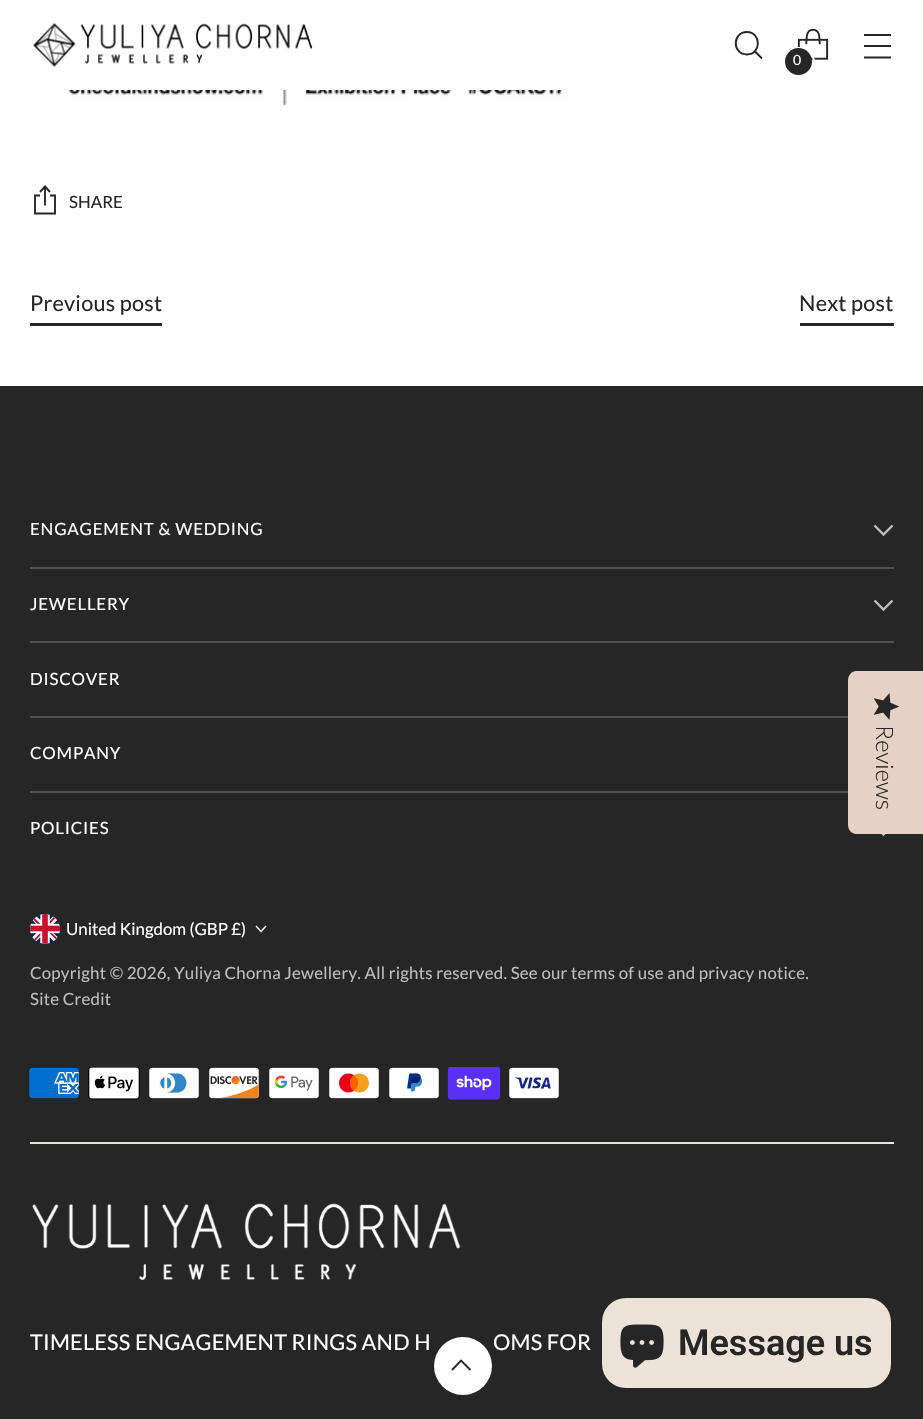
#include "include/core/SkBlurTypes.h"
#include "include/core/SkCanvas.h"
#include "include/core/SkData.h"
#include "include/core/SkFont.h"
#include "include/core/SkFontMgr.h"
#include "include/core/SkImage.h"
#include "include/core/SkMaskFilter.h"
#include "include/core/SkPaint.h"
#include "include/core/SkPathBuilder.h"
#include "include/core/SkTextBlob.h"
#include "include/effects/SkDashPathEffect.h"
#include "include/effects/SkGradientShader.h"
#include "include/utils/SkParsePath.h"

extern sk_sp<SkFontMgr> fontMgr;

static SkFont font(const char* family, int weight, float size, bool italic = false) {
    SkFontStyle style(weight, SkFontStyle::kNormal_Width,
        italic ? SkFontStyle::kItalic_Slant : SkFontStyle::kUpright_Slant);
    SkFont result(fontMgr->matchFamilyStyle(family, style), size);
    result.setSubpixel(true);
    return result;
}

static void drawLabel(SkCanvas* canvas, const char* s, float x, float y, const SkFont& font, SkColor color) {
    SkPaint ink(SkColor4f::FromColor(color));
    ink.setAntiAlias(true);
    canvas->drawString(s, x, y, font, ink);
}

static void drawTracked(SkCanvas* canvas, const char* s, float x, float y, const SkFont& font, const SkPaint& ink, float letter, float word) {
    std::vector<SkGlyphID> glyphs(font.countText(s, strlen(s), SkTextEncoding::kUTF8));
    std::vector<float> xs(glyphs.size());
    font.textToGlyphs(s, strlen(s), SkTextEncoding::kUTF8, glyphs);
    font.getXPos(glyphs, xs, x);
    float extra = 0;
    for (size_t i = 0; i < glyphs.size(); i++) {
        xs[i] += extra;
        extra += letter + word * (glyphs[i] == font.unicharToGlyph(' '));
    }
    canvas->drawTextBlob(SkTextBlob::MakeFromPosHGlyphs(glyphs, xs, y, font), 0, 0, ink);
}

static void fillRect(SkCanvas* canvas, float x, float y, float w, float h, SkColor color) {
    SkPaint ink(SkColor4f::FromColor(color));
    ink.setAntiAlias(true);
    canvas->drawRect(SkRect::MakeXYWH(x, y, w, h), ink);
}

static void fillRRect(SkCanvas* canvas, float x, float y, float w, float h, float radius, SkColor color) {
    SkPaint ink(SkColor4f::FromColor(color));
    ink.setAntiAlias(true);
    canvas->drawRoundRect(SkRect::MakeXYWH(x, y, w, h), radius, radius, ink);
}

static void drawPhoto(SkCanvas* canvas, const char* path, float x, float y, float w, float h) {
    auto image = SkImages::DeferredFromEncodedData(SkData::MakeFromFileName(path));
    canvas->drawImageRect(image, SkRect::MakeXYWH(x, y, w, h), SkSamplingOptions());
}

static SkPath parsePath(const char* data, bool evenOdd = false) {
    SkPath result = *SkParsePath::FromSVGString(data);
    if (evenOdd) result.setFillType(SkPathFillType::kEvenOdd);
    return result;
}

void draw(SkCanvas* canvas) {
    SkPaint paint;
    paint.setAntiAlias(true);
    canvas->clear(0xFFFFFFFF);
    drawPhoto(canvas, "assets/img1.png", 33, 23, 280, 44);
    paint.setStroke(true);
    paint.setStrokeWidth(1.9f);
    paint.setStrokeCap(SkPaint::kRound_Cap);
    paint.setColor(0xFF262626);
    canvas->drawPath(parsePath("M747 54.5C761.5 54.5 761.5 32 747 32C732 32 732 54.5 747 54.5Z"), paint);
    paint.setStrokeCap(SkPaint::kButt_Cap);
    canvas->drawPath(parsePath("M755 51.5L762 58.5"), paint);
    drawPhoto(canvas, "assets/img2.png", 797, 28, 32, 32);
    paint.setStrokeWidth(2);
    paint.setColor(0xFFFFFFFF);
    canvas->drawRoundRect(SkRect::MakeXYWH(784, 48, 30, 29), 14.5f, 14.5f, paint);
    paint.setStroke(false);
    paint.setColor(0xFF262626);
    canvas->drawCircle(798.5f, 61.5f, 13.5f, paint);
    SkFont font1 = font("Lato", 400, 14);
    paint.setColor(0xFFFFFFFF);
    drawTracked(canvas, "0", 793, 65, font1, paint, 0.22f, 0);
    paint.setStroke(true);
    paint.setStrokeWidth(1.9f);
    paint.setColor(0xFF262626);
    canvas->drawPath(parsePath("M864 46H891M864 35H891M864 57.5H891"), paint);
    drawPhoto(canvas, "assets/img3.png", 66, 90, 502, 16);
    canvas->drawPath(parsePath("M40 195.5H35V213.5H55V195.5H50M45 205.5V187.5M50 192L45 186.5L40 192"), paint);
    SkFont font2 = font("Lato", 400, 16.85f);
    drawLabel(canvas, "SHARE", 69, 208, font2, 0xFF262626);
    SkFont font3 = font("Lato", 400, 21.7f);
    paint.setStroke(false);
    drawTracked(canvas, "Previous post", 30, 311, font3, paint, 0.22f, 0);
    fillRect(canvas, 30, 323, 132, 3, 0xFF262626);
    drawTracked(canvas, "Next post", 799, 311, font3, paint, 0.22f, 0);
    fillRect(canvas, 800, 323, 94, 3, 0xFF262626);
    fillRect(canvas, 0, 386, 923, 1033, 0xFF262626);
    fillRect(canvas, 30, 567, 864, 2, 0xFF515151);
    paint.setColor(0xFFFFFFFF);
    drawTracked(canvas, "ENGAGEMENT & WEDDING", 30, 535, font2, paint, 0.8f, 0);
    paint.setStroke(true);
    paint.setStrokeWidth(2.4f);
    paint.setColor(0xFFBEBEBE);
    canvas->drawPath(parsePath("M874.5 525.5L883.5 534.5L892.5 525.5"), paint);
    fillRect(canvas, 30, 641, 864, 2, 0xFF515151);
    paint.setStroke(false);
    paint.setColor(0xFFFFFFFF);
    drawTracked(canvas, "JEWELLERY", 30, 610, font2, paint, 0.8f, 0);
    paint.setStroke(true);
    paint.setColor(0xFFBEBEBE);
    canvas->drawPath(parsePath("M874.5 600.5L883.5 609.5L892.5 600.5"), paint);
    fillRect(canvas, 30, 716, 818, 2, 0xFF515151);
    paint.setStroke(false);
    paint.setColor(0xFFFFFFFF);
    drawTracked(canvas, "DISCOVER", 30, 685, font2, paint, 0.8f, 0);
    fillRect(canvas, 30, 791, 818, 2, 0xFF515151);
    drawTracked(canvas, "COMPANY", 30, 759, font2, paint, 0.8f, 0);
    drawTracked(canvas, "POLICIES", 30, 834, font2, paint, 0.8f, 0);
    paint.setStroke(true);
    paint.setColor(0xFFBEBEBE);
    canvas->drawPath(parsePath("M874.5 825.5L883.5 834.5L892.5 825.5"), paint);
    drawPhoto(canvas, "assets/img4.png", 30, 914, 30, 30);
    drawLabel(canvas, "United Kingdom (GBP £)", 66, 935, font2, 0xFFFFFFFF);
    paint.setStrokeWidth(1.4f);
    paint.setColor(0xFFFFFFFF);
    canvas->drawPath(parsePath("M256 926L261 931.5L266 926"), paint);
    paint.setStroke(false);
    paint.setColor(0xFFBEBEBE);
    drawTracked(canvas, "Copyright © 2026, Yuliya Chorna Jewellery. All rights reserved. See our terms of use and privacy notice.", 30, 979, font2, paint, 0.22f, 0);
    drawTracked(canvas, "Site Credit", 30, 1005, font2, paint, 0.22f, 0);
    drawPhoto(canvas, "assets/img5.png", 29, 1067, 50, 32);
    drawPhoto(canvas, "assets/img6.png", 88, 1067, 52, 33);
    drawPhoto(canvas, "assets/img7.png", 149, 1067, 50, 32);
    drawPhoto(canvas, "assets/img8.png", 209, 1067, 50, 32);
    drawPhoto(canvas, "assets/img9.png", 269, 1067, 50, 32);
    drawPhoto(canvas, "assets/img10.png", 329, 1067, 50, 32);
    drawPhoto(canvas, "assets/img11.png", 389, 1067, 50, 32);
    drawPhoto(canvas, "assets/img12.png", 447, 1067, 54, 33);
    drawPhoto(canvas, "assets/img13.png", 509, 1067, 50, 32);
    fillRect(canvas, 30, 1142, 864, 2, 0xFFECE2D7);
    drawPhoto(canvas, "assets/img14.png", 32, 1203, 429, 77);
    paint.setColor(0xFFFFFFFF);
    drawTracked(canvas, "TIMELESS ENGAGEMENT RINGS AND H", 30, 1350, font3, paint, 0.22f, 0);
    drawTracked(canvas, "OMS FOR", 493, 1350, font3, paint, 0.22f, 0);
    canvas->drawCircle(463, 1366, 29, paint);
    paint.setStroke(true);
    paint.setStrokeWidth(1.9f);
    paint.setColor(0xFF262626);
    canvas->drawPath(parsePath("M470.5 1370L461 1360.5L452 1370"), paint);
    paint.setStroke(false);
    paint.setColor(0xFFE5D1C5);
    canvas->drawPath(parsePath("M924 671V834H856C852 834 848 830 848 825V680C848 675 852 671 856 671Z"), paint);
    drawPhoto(canvas, "assets/img15.png", 873, 693, 27, 27);
    SkFont font4 = font("Lato", 300, 24);
    canvas->save();
    canvas->rotate(90, 876, 725);
    drawLabel(canvas, "Reviews", 876, 725, font4, 0xFF262626);
    canvas->restore();
    fillRRect(canvas, 602, 1298, 289, 90, 24, 0xFFECE2D7);
    drawPhoto(canvas, "assets/img16.png", 620, 1324, 44, 44);
    SkFont font5 = font("Roboto", 600, 36);
    drawLabel(canvas, "Message us", 678, 1355, font5, 0xFF262626);
}
